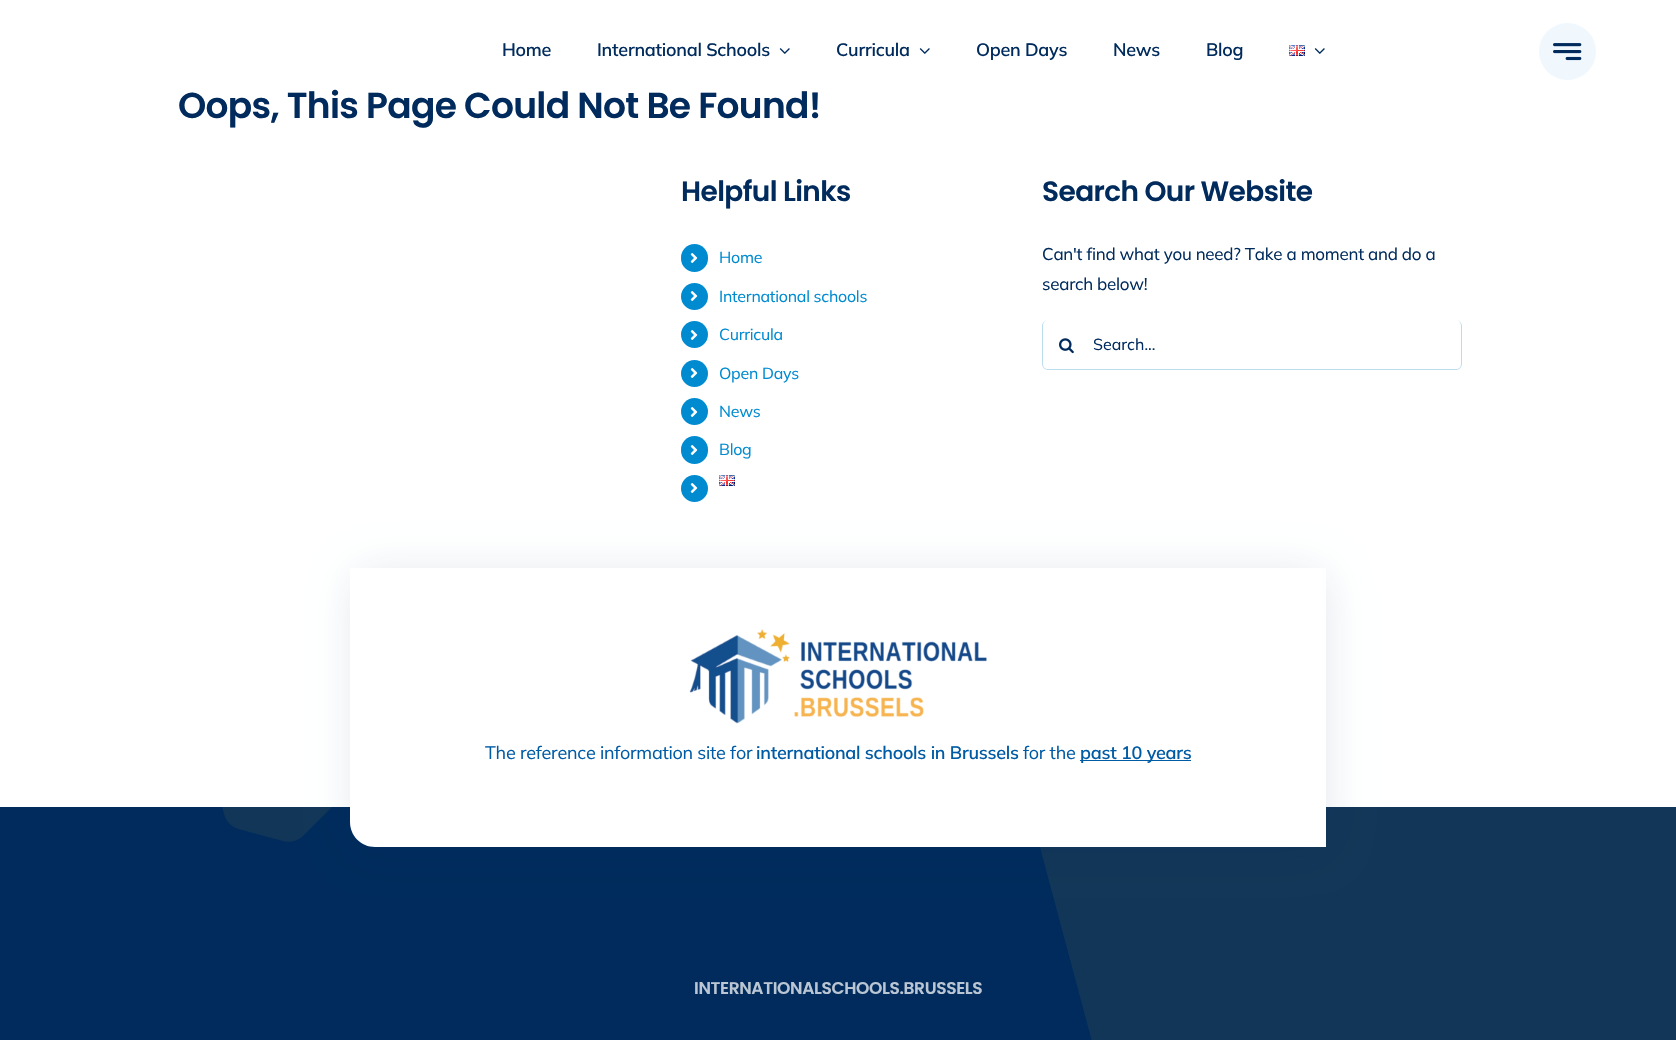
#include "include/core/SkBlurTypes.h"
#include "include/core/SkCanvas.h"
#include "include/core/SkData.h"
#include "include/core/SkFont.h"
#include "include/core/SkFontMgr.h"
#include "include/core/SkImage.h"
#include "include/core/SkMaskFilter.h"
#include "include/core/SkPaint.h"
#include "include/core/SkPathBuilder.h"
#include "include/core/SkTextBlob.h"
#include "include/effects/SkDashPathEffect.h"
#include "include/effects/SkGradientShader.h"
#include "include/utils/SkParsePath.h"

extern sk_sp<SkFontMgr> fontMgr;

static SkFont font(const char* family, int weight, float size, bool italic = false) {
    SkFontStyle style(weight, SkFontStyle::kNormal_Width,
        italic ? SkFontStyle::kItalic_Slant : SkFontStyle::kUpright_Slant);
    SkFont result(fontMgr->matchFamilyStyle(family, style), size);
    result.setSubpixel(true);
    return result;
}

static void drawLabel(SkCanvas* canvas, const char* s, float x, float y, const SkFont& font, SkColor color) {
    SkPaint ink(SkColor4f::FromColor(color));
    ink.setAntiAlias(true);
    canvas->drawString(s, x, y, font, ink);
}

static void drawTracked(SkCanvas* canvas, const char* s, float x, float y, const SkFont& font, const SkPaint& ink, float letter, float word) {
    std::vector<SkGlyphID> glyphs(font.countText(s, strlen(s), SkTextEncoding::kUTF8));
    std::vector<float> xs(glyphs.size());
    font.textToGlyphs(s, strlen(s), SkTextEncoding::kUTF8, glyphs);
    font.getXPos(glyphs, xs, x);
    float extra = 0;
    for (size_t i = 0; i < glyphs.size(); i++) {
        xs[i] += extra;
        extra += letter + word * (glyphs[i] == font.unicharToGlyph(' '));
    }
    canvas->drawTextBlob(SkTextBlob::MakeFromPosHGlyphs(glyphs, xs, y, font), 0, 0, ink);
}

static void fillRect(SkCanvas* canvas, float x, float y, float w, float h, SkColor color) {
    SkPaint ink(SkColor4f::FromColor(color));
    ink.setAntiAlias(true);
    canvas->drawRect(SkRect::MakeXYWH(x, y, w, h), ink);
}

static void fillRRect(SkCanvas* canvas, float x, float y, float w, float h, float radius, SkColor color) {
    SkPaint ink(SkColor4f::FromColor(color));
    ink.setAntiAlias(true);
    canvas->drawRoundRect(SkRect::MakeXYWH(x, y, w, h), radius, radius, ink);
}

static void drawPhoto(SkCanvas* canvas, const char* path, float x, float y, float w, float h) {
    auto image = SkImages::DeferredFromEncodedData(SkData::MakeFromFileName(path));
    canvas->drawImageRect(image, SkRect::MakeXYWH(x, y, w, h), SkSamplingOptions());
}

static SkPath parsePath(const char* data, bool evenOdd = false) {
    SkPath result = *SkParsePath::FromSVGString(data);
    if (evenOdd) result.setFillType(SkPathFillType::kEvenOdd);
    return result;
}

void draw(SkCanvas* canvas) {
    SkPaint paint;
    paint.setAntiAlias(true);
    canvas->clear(0xFFFFFFFF);
    SkFont font1 = font("Mulish", 600, 18);
    paint.setColor(0xFF002B5C);
    drawTracked(canvas, "Home", 502, 56, font1, paint, -0.25f, 0);
    drawTracked(canvas, "International Schools", 597, 56, font1, paint, -0.25f, 0);
    drawPhoto(canvas, "assets/img1.png", 779, 48, 11, 6);
    drawTracked(canvas, "Curricula", 836, 56, font1, paint, -0.25f, 0);
    drawPhoto(canvas, "assets/img1.png", 919, 48, 11, 6);
    drawTracked(canvas, "Open Days", 976, 56, font1, paint, -0.25f, 0);
    drawTracked(canvas, "News", 1113, 56, font1, paint, -0.25f, 0);
    drawTracked(canvas, "Blog", 1206, 56, font1, paint, -0.25f, 0);
    drawPhoto(canvas, "assets/img2.png", 1289, 45, 16, 11);
    drawPhoto(canvas, "assets/img1.png", 1314, 48, 11, 6);
    paint.setColor(0xFFF0F8FE);
    canvas->drawCircle(1567.5f, 51.5f, 28.5f, paint);
    drawPhoto(canvas, "assets/img3.png", 1553, 43, 29, 18);
    SkFont font2 = font("Poppins", 600, 36);
    paint.setColor(0xFF002B5C);
    drawTracked(canvas, "Oops, This Page Could Not Be Found!", 178, 118, font2, paint, -0.7f, 0);
    SkFont font3 = font("Poppins", 600, 28);
    drawTracked(canvas, "Helpful Links", 681, 201, font3, paint, -0.6f, 0);
    fillRRect(canvas, 681, 244, 27, 28, 13.5f, 0xFF008BD1);
    drawPhoto(canvas, "assets/img4.png", 690, 253, 8, 10);
    SkFont font4 = font("Mulish", 400, 16);
    paint.setColor(0xFF008BD1);
    drawTracked(canvas, "Home", 719, 263, font4, paint, -0.25f, 0);
    canvas->drawCircle(694.5f, 296.5f, 13.5f, paint);
    drawPhoto(canvas, "assets/img4.png", 690, 291, 8, 10);
    drawTracked(canvas, "International schools", 719, 302, font4, paint, -0.25f, 0);
    canvas->drawCircle(694.5f, 334.5f, 13.5f, paint);
    drawPhoto(canvas, "assets/img4.png", 690, 330, 8, 10);
    drawTracked(canvas, "Curricula", 719, 340, font4, paint, -0.25f, 0);
    canvas->drawCircle(694.5f, 373.5f, 13.5f, paint);
    drawPhoto(canvas, "assets/img4.png", 690, 368, 8, 10);
    drawTracked(canvas, "Open Days", 719, 379, font4, paint, -0.25f, 0);
    canvas->drawCircle(694.5f, 411.5f, 13.5f, paint);
    drawPhoto(canvas, "assets/img4.png", 690, 407, 8, 10);
    drawTracked(canvas, "News", 719, 417, font4, paint, -0.25f, 0);
    fillRRect(canvas, 681, 436, 27, 28, 13.5f, 0xFF008BD1);
    drawPhoto(canvas, "assets/img4.png", 690, 445, 8, 10);
    drawTracked(canvas, "Blog", 719, 455, font4, paint, -0.25f, 0);
    canvas->drawCircle(694.5f, 488.5f, 13.5f, paint);
    drawPhoto(canvas, "assets/img4.png", 690, 483, 8, 10);
    drawPhoto(canvas, "assets/img2.png", 719, 475, 16, 11);
    paint.setColor(0xFF002B5C);
    drawTracked(canvas, "Search Our Website", 1042, 201, font3, paint, -0.6f, 0);
    SkFont font5 = font("Mulish", 400, 17);
    drawTracked(canvas, "Can't find what you need? Take a moment and do a", 1042, 260, font5, paint, -0.25f, 0);
    drawTracked(canvas, "search below!", 1042, 290, font5, paint, -0.25f, 0);
    paint.setColor(0xFFBDDDEC);
    canvas->drawPath(parsePath("M1048 320H1456C1459 320 1462 323 1462 326V364C1462 367 1459 370 1456 370H1048C1045 370 1042 367 1042 364V326C1042 323 1045 320 1048 320ZM1048 320H1456C1459 320 1461 323 1461 326V364C1461 367 1459 369 1456 369H1048C1045 369 1043 367 1043 364V326C1043 323 1045 320 1048 320Z", true), paint);
    drawPhoto(canvas, "assets/img5.png", 1059, 338, 15, 16);
    drawLabel(canvas, "Search...", 1093, 350, font4, 0xFF002B5C);
    fillRect(canvas, 0, 807, 1676, 233, 0xFF002B5C);
    drawPhoto(canvas, "assets/img7.png", 222, 807, 1454, 233);
    paint.setColor(0x1A002B5C);
    paint.setMaskFilter(SkMaskFilter::MakeBlur(kNormal_SkBlurStyle, 20));
    canvas->drawRoundRect(SkRect::MakeXYWH(352, 570, 976, 279), 25, 25, paint);
    paint.setMaskFilter(nullptr);
    paint.setColor(0xFFFFFFFF);
    canvas->drawPath(parsePath("M350 568H1326V847H375C361 847 350 836 350 822Z"), paint);
    drawPhoto(canvas, "assets/img6.png", 689, 629, 298, 95);
    SkFont font6 = font("Mulish", 400, 18);
    paint.setColor(0xFF005BA5);
    drawTracked(canvas, "The reference information site for", 485, 759, font6, paint, -0.25f, 0);
    drawTracked(canvas, "international schools in Brussels", 756, 759, font1, paint, -0.25f, 0);
    drawTracked(canvas, "for the", 1023, 759, font6, paint, -0.25f, 0);
    fillRect(canvas, 1080, 760, 111, 1, 0xFF005BA5);
    drawTracked(canvas, "past 10 years", 1080, 759, font1, paint, -0.25f, 0);
    SkFont font7 = font("Poppins", 600, 17);
    paint.setColor(0xFFBAC6D3);
    drawTracked(canvas, "INTERNATIONALSCHOOLS.BRUSSELS", 694, 994, font7, paint, -0.35f, 0);
}
